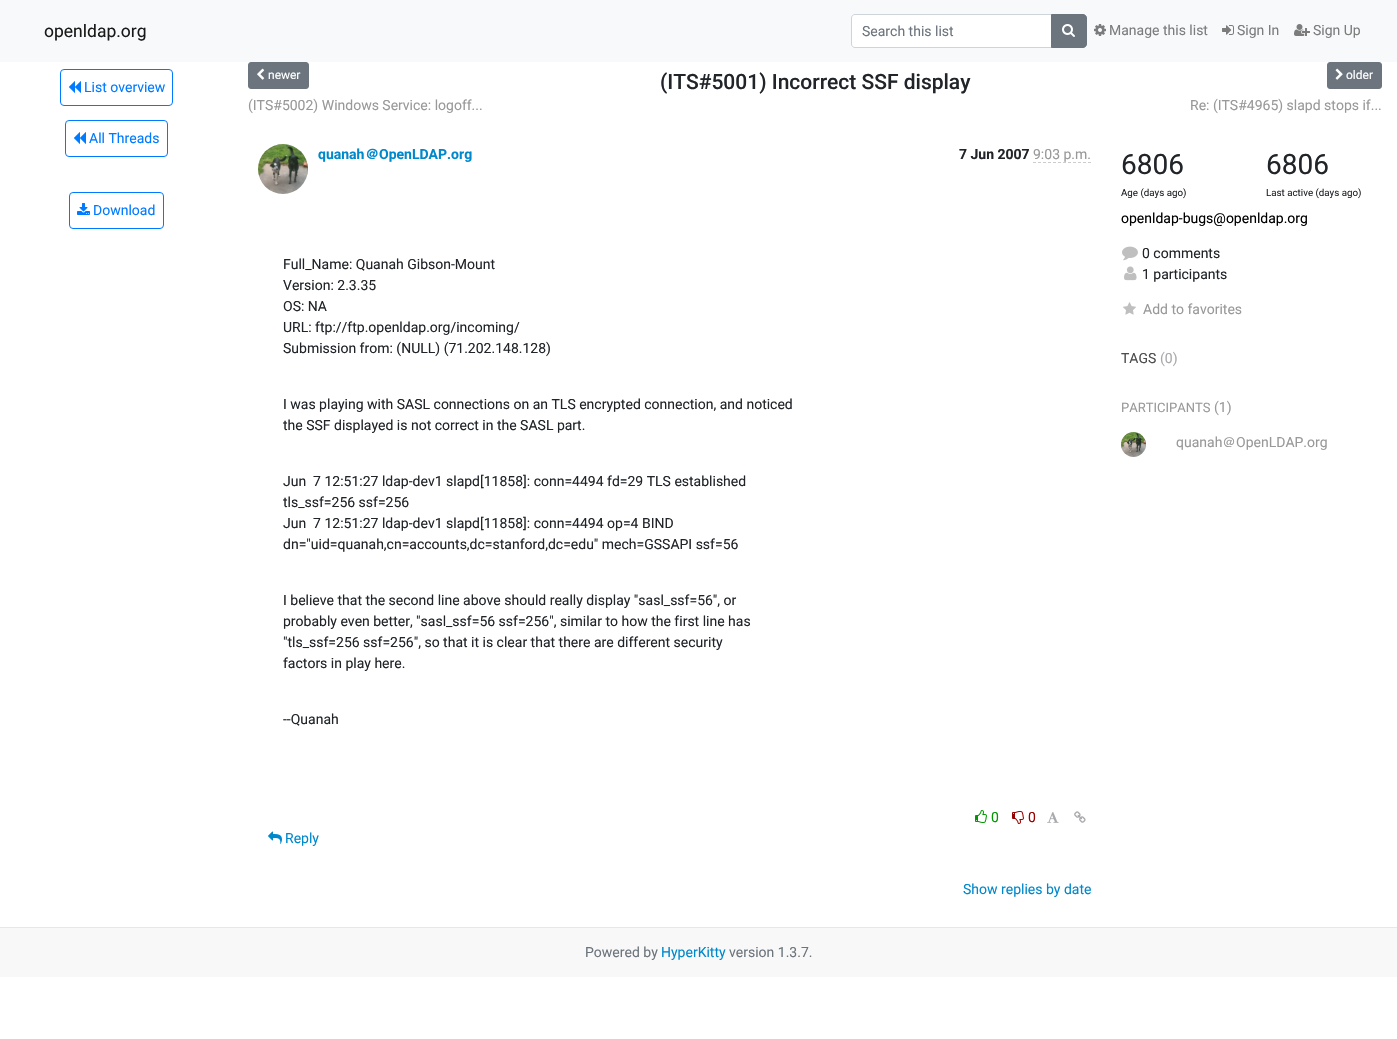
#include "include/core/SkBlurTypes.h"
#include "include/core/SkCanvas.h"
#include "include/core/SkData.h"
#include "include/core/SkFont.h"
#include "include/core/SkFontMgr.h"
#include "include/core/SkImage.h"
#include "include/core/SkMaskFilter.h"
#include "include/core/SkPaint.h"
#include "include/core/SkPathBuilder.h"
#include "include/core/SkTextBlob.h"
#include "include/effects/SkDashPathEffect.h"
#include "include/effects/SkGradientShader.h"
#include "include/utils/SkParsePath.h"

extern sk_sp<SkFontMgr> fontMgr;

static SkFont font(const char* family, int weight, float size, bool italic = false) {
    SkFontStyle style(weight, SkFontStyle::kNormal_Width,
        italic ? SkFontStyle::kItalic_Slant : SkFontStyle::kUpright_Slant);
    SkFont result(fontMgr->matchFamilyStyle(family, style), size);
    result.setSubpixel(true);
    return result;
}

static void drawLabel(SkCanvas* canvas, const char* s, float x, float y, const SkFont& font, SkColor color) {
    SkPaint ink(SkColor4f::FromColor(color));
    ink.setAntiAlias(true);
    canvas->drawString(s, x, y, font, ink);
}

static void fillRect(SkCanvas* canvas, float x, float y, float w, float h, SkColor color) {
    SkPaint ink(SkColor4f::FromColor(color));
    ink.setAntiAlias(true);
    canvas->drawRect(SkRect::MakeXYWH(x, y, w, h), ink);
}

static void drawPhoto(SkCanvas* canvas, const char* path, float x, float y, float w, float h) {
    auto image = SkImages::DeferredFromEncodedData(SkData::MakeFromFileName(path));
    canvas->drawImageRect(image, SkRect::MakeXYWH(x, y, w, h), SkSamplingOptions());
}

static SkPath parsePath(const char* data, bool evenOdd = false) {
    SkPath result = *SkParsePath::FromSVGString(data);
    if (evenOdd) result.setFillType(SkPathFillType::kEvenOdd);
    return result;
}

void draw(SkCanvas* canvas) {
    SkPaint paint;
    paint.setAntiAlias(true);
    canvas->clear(0xFFFFFFFF);
    fillRect(canvas, 0, 0, 1397, 62, 0xFFF8F9FA);
    SkFont font1 = font("Roboto", 400, 17.5f);
    drawLabel(canvas, "openldap.org", 44, 37, font1, 0xFF191919);
    paint.setColor(0xFFFFFFFF);
    canvas->drawPath(parsePath("M854.5 15H1051V47H854.5C853 47 852 46 852 44.5V17.5C852 16 853 15 854.5 15Z"), paint);
    paint.setStroke(true);
    paint.setStrokeWidth(1);
    paint.setColor(0xFFCED4DA);
    canvas->drawPath(parsePath("M855 14.5H1051.5V47.5H855C853 47.5 851.5 46 851.5 44V18C851.5 16 853 14.5 855 14.5Z"), paint);
    SkFont font2 = font("Roboto", 400, 14);
    drawLabel(canvas, "Search this list", 862, 36, font2, 0xFF6C757D);
    paint.setStroke(false);
    paint.setColor(0xFF6C757D);
    canvas->drawPath(parsePath("M1051.5 14.5H1083C1085 14.5 1086.5 16 1086.5 18V44C1086.5 46 1085 47.5 1083 47.5H1051.5Z"), paint);
    paint.setStroke(true);
    canvas->drawPath(parsePath("M1051.5 14.5H1083C1085 14.5 1086.5 16 1086.5 18V44C1086.5 46 1085 47.5 1083 47.5H1051.5Z"), paint);
    drawPhoto(canvas, "assets/img1.png", 1062, 24, 13, 13);
    drawPhoto(canvas, "assets/img2.png", 1094, 24, 12, 12);
    drawLabel(canvas, "Manage this list", 1109, 35, font2, 0xFF7C7D7D);
    drawPhoto(canvas, "assets/img3.png", 1222, 25, 12, 10);
    drawLabel(canvas, "Sign In", 1237, 35, font2, 0xFF7C7D7D);
    drawPhoto(canvas, "assets/img4.png", 1294, 24, 16, 12);
    drawLabel(canvas, "Sign Up", 1313, 35, font2, 0xFF7C7D7D);
    paint.setColor(0xFF007BFF);
    canvas->drawRoundRect(SkRect::MakeXYWH(60.5f, 69.5f, 112, 36), 3.5f, 3.5f, paint);
    drawPhoto(canvas, "assets/img5.png", 69, 81, 12, 12);
    drawLabel(canvas, "List overview", 84, 92, font2, 0xFF007BFF);
    canvas->drawRoundRect(SkRect::MakeXYWH(65.5f, 120.5f, 102, 36), 3.5f, 3.5f, paint);
    drawPhoto(canvas, "assets/img5.png", 74, 132, 12, 12);
    drawLabel(canvas, "All Threads", 89, 143, font2, 0xFF007BFF);
    canvas->drawRoundRect(SkRect::MakeXYWH(69.5f, 192.5f, 94, 36), 3.5f, 3.5f, paint);
    drawPhoto(canvas, "assets/img6.png", 77, 203, 13, 12);
    drawLabel(canvas, "Download", 93, 215, font2, 0xFF007BFF);
    paint.setStroke(false);
    paint.setColor(0xFF6C757D);
    canvas->drawRoundRect(SkRect::MakeXYWH(248.5f, 62.5f, 60, 26), 2.5f, 2.5f, paint);
    paint.setStroke(true);
    canvas->drawRoundRect(SkRect::MakeXYWH(248.5f, 62.5f, 60, 26), 2.5f, 2.5f, paint);
    drawPhoto(canvas, "assets/img7.png", 257, 68, 8, 12);
    SkFont font3 = font("Roboto", 400, 12);
    drawLabel(canvas, "newer", 268, 79, font3, 0xFFFFFFFF);
    SkFont font4 = font("Roboto", 500, 21);
    drawLabel(canvas, "(ITS#5001) Incorrect SSF display", 660, 89, font4, 0xFF212529);
    paint.setStroke(false);
    canvas->drawRoundRect(SkRect::MakeXYWH(1327.5f, 62.5f, 54, 26), 2.5f, 2.5f, paint);
    paint.setStroke(true);
    canvas->drawRoundRect(SkRect::MakeXYWH(1327.5f, 62.5f, 54, 26), 2.5f, 2.5f, paint);
    drawPhoto(canvas, "assets/img8.png", 1335, 68, 8, 12);
    drawLabel(canvas, "older", 1346, 79, font3, 0xFFFFFFFF);
    drawLabel(canvas, "(ITS#5002) Windows Service: logoff...", 248, 110, font2, 0xFF999999);
    drawLabel(canvas, "Re: (ITS#4965) slapd stops if...", 1190, 110, font2, 0xFF999999);
    drawPhoto(canvas, "assets/img9.png", 258, 144, 50, 50);
    SkFont font5 = font("Roboto", 700, 14);
    drawLabel(canvas, "quanah", 318, 159, font5, 0xFF0088CC);
    SkFont font6 = font("WenQuanYi Zen Hei", 700, 14);
    drawLabel(canvas, "＠", 365, 159, font6, 0xFF0088CC);
    drawLabel(canvas, "OpenLDAP.org", 379, 159, font5, 0xFF0088CC);
    drawLabel(canvas, "7 Jun 2007", 959, 159, font5, 0xFF212529);
    drawLabel(canvas, "9:03 p.m.", 1033, 159, font2, 0xFF999999);
    paint.setColor(0xFFCCCCCC);
    paint.setPathEffect(SkDashPathEffect::Make({{3, 2}}, 0));
    canvas->drawPath(parsePath("M1033 162.5H1091"), paint);
    paint.setPathEffect(nullptr);
    drawLabel(canvas, "Full_Name: Quanah Gibson-Mount", 283, 269, font2, 0xFF212529);
    drawLabel(canvas, "Version: 2.3.35", 283, 290, font2, 0xFF212529);
    drawLabel(canvas, "OS: NA", 283, 311, font2, 0xFF212529);
    drawLabel(canvas, "URL: ftp://ftp.openldap.org/incoming/", 283, 332, font2, 0xFF212529);
    drawLabel(canvas, "Submission from: (NULL) (71.202.148.128)", 283, 353, font2, 0xFF212529);
    drawLabel(canvas, "I was playing with SASL connections on an TLS encrypted connection, and noticed", 283, 409, font2, 0xFF212529);
    drawLabel(canvas, "the SSF displayed is not correct in the SASL part.", 283, 430, font2, 0xFF212529);
    drawLabel(canvas, "Jun  7 12:51:27 ldap-dev1 slapd[11858]: conn=4494 fd=29 TLS established", 283, 486, font2, 0xFF212529);
    drawLabel(canvas, "tls_ssf=256 ssf=256", 283, 507, font2, 0xFF212529);
    drawLabel(canvas, "Jun  7 12:51:27 ldap-dev1 slapd[11858]: conn=4494 op=4 BIND", 283, 528, font2, 0xFF212529);
    drawLabel(canvas, "dn=\"uid=quanah,cn=accounts,dc=stanford,dc=edu\" mech=GSSAPI ssf=56", 283, 549, font2, 0xFF212529);
    drawLabel(canvas, "I believe that the second line above should really display \"sasl_ssf=56\", or", 283, 605, font2, 0xFF212529);
    drawLabel(canvas, "probably even better, \"sasl_ssf=56 ssf=256\", similar to how the first line has", 283, 626, font2, 0xFF212529);
    drawLabel(canvas, "\"tls_ssf=256 ssf=256\", so that it is clear that there are different security", 283, 647, font2, 0xFF212529);
    drawLabel(canvas, "factors in play here.", 283, 668, font2, 0xFF212529);
    drawLabel(canvas, "--Quanah", 283, 724, font2, 0xFF212529);
    drawPhoto(canvas, "assets/img10.png", 975, 810, 12, 13);
    drawLabel(canvas, "0", 991, 822, font2, 0xFF009900);
    drawPhoto(canvas, "assets/img11.png", 1012, 811, 12, 13);
    drawLabel(canvas, "0", 1028, 822, font2, 0xFF990000);
    drawPhoto(canvas, "assets/img12.png", 1047, 812, 12, 11);
    drawPhoto(canvas, "assets/img13.png", 1074, 811, 12, 12);
    drawPhoto(canvas, "assets/img14.png", 268, 831, 14, 13);
    drawLabel(canvas, "Reply", 285, 843, font2, 0xFF0088CC);
    drawLabel(canvas, "Show replies by date", 963, 894, font2, 0xFF0088CC);
    SkFont font7 = font("Roboto", 400, 28);
    drawLabel(canvas, "6806", 1121, 174, font7, 0xFF212529);
    SkFont font8 = font("Roboto", 400, 9.75f);
    drawLabel(canvas, "Age (days ago)", 1121, 196, font8, 0xFF212529);
    drawLabel(canvas, "6806", 1266, 174, font7, 0xFF212529);
    drawLabel(canvas, "Last active (days ago)", 1266, 196, font8, 0xFF212529);
    drawLabel(canvas, "openldap-bugs@openldap.org", 1121, 223, font2, 0xFF000000);
    drawPhoto(canvas, "assets/img15.png", 1122, 246, 16, 15);
    drawLabel(canvas, "0 comments", 1142, 258, font2, 0xFF212529);
    drawPhoto(canvas, "assets/img16.png", 1124, 266, 13, 15);
    drawLabel(canvas, "1 participants", 1142, 279, font2, 0xFF212529);
    drawPhoto(canvas, "assets/img17.png", 1123, 302, 13, 13);
    drawLabel(canvas, "Add to favorites", 1143, 314, font2, 0xFF999999);
    drawLabel(canvas, "TAGS", 1121, 363, font2, 0xFF4D4D4D);
    drawLabel(canvas, "(0)", 1160, 363, font2, 0xFFA7A9AC);
    SkFont font9 = font("Roboto", 400, 13);
    drawLabel(canvas, "PARTICIPANTS", 1121, 412, font9, 0xFF999999);
    drawLabel(canvas, "(1)", 1214, 412, font2, 0xFF999999);
    drawPhoto(canvas, "assets/img18.png", 1121, 432, 25, 25);
    drawLabel(canvas, "quanah", 1176, 447, font2, 0xFF999999);
    SkFont font10 = font("WenQuanYi Zen Hei", 500, 14);
    drawLabel(canvas, "＠", 1222, 447, font10, 0xFF999999);
    drawLabel(canvas, "OpenLDAP.org", 1236, 447, font2, 0xFF999999);
    fillRect(canvas, 0, 928, 1397, 49, 0xFFF8F8F8);
    fillRect(canvas, 0, 927, 1397, 1, 0xFFE7E7E7);
    drawLabel(canvas, "Powered by", 585, 957, font2, 0xFF6C757D);
    drawLabel(canvas, "HyperKitty", 661, 957, font2, 0xFF0088CC);
    drawLabel(canvas, "version 1.3.7.", 729, 957, font2, 0xFF6C757D);
}
